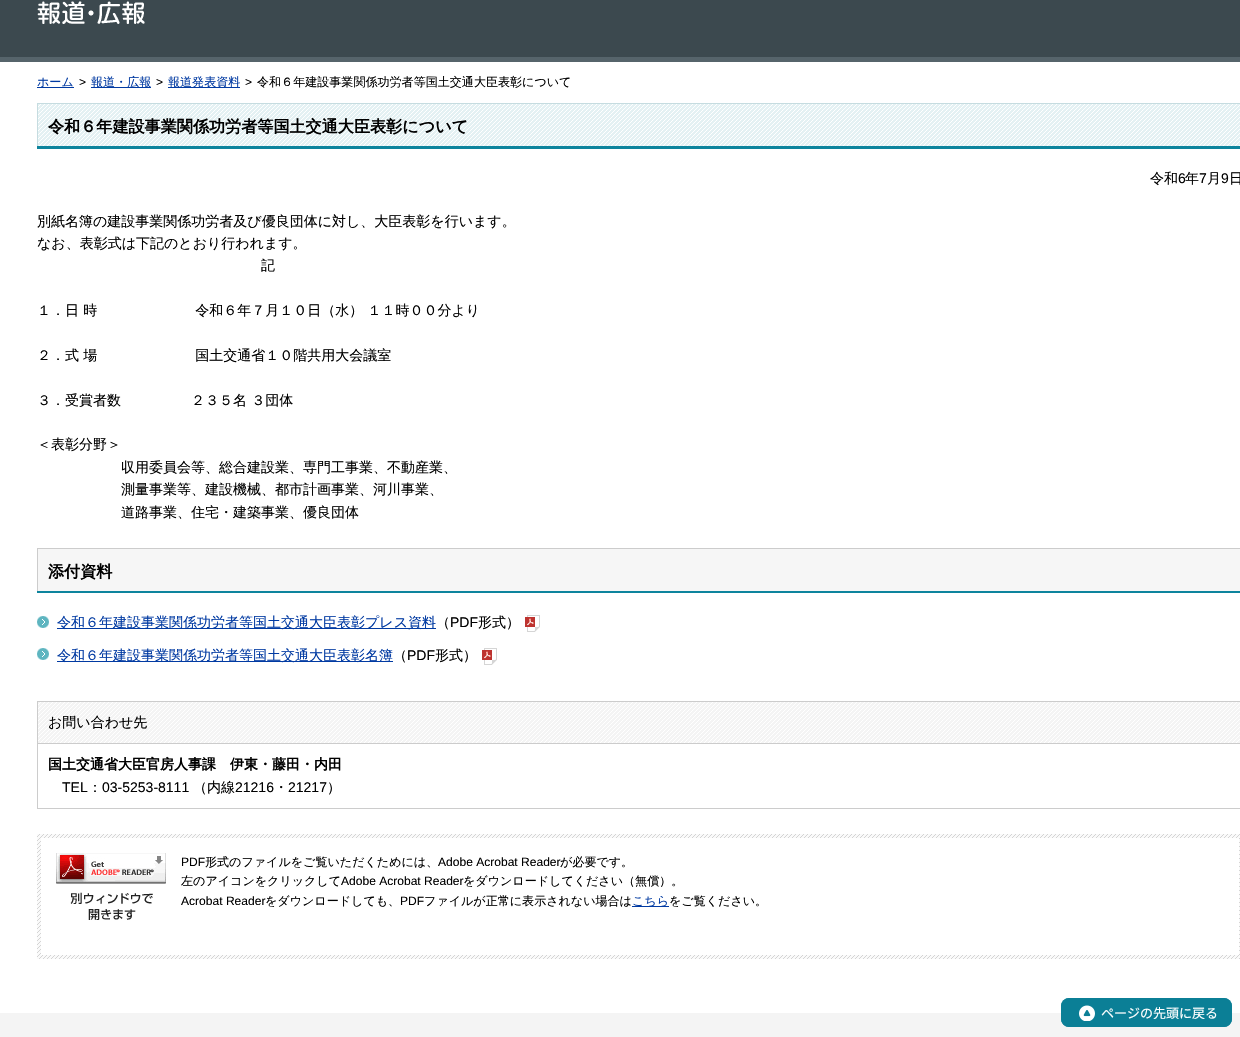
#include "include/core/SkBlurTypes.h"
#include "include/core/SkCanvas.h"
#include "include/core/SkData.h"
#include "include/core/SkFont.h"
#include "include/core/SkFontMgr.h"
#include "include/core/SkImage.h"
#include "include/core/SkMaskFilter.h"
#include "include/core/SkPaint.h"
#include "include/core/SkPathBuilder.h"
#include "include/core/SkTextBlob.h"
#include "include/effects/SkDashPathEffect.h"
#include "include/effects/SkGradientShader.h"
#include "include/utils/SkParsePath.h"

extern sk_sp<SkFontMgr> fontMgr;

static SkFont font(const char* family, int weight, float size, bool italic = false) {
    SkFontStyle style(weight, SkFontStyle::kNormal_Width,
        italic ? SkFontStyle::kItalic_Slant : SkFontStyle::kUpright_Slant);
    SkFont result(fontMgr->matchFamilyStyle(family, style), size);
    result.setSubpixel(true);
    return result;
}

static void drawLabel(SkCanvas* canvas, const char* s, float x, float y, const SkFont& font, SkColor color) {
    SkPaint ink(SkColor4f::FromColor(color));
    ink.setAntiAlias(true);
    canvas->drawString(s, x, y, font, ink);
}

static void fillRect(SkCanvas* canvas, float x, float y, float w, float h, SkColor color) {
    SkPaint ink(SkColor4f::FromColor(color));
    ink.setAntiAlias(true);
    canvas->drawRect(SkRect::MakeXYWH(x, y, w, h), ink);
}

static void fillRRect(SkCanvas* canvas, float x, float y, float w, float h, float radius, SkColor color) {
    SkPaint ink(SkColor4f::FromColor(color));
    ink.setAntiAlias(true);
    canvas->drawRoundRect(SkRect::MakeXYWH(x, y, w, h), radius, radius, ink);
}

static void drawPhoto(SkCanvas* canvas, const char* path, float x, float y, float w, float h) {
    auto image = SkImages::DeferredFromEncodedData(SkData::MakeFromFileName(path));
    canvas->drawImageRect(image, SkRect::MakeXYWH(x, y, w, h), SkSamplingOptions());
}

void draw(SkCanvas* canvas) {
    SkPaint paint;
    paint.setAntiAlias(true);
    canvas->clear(0xFFFFFFFF);
    fillRect(canvas, 0, 0, 1240, 57, 0xFF3C494F);
    fillRect(canvas, 0, 57, 1240, 5, 0xFF56646B);
    drawPhoto(canvas, "assets/img1.png", 37, 1, 108, 23);
    fillRect(canvas, 37, 87, 37, 1, 0xFF013AA2);
    SkFont font1 = font("WenQuanYi Zen Hei", 500, 12.05f);
    drawLabel(canvas, "ホーム", 37, 86, font1, 0xFF013AA2);
    SkFont font2 = font("Liberation Sans", 400, 12.05f);
    drawLabel(canvas, ">", 79, 86, font2, 0xFF000000);
    fillRect(canvas, 91, 87, 60, 1, 0xFF013AA2);
    drawLabel(canvas, "報道・広報", 91, 86, font1, 0xFF013AA2);
    drawLabel(canvas, ">", 156, 86, font2, 0xFF000000);
    fillRect(canvas, 168, 87, 72, 1, 0xFF013AA2);
    drawLabel(canvas, "報道発表資料", 168, 86, font1, 0xFF013AA2);
    drawLabel(canvas, ">", 245, 86, font2, 0xFF000000);
    drawLabel(canvas, "令和６年建設事業関係功労者等国土交通大臣表彰について", 257, 86, font1, 0xFF000000);
    fillRect(canvas, 37, 146, 1203, 3, 0xFF0D849D);
    drawPhoto(canvas, "assets/img2.png", 38, 104, 1202, 42);
    fillRect(canvas, 37, 103, 1203, 1, 0xFFC6DCE0);
    fillRect(canvas, 37, 103, 1, 43, 0xFFC6DCE0);
    SkFont font3 = font("WenQuanYi Zen Hei", 700, 16.1f);
    drawLabel(canvas, "令和６年建設事業関係功労者等国土交通大臣表彰について", 48, 132, font3, 0xFF000000);
    SkFont font4 = font("WenQuanYi Zen Hei", 500, 14);
    drawLabel(canvas, "令和", 1150, 183, font4, 0xFF000000);
    SkFont font5 = font("Liberation Sans", 400, 14);
    drawLabel(canvas, "6", 1178, 183, font5, 0xFF000000);
    drawLabel(canvas, "年", 1185, 183, font4, 0xFF000000);
    drawLabel(canvas, "7", 1199, 183, font5, 0xFF000000);
    drawLabel(canvas, "月", 1207, 183, font4, 0xFF000000);
    drawLabel(canvas, "9", 1221, 183, font5, 0xFF000000);
    drawLabel(canvas, "日", 1229, 183, font4, 0xFF000000);
    drawLabel(canvas, "別紙名簿の建設事業関係功労者及び優良団体に対し、大臣表彰を行います。", 37, 226, font4, 0xFF000000);
    drawLabel(canvas, "なお、表彰式は下記のとおり行われます。", 37, 248, font4, 0xFF000000);
    drawLabel(canvas, "記", 261, 270, font4, 0xFF000000);
    drawLabel(canvas, "１．日 時　　　　　　　令和６年７月１０日（水） １１時００分より", 37, 315, font4, 0xFF000000);
    drawLabel(canvas, "２．式 場　　　　　　　国土交通省１０階共用大会議室", 37, 360, font4, 0xFF000000);
    drawLabel(canvas, "３．受賞者数　　　　　２３５名 ３団体", 37, 405, font4, 0xFF000000);
    drawLabel(canvas, "＜表彰分野＞", 37, 449, font4, 0xFF000000);
    drawLabel(canvas, "収用委員会等、総合建設業、専門工事業、不動産業、", 121, 472, font4, 0xFF000000);
    drawLabel(canvas, "測量事業等、建設機械、都市計画事業、河川事業、", 121, 494, font4, 0xFF000000);
    drawLabel(canvas, "道路事業、住宅・建築事業、優良団体", 121, 517, font4, 0xFF000000);
    fillRect(canvas, 37, 591, 1203, 2, 0xFF0D849D);
    fillRect(canvas, 38, 549, 1202, 42, 0xFFF6F6F6);
    fillRect(canvas, 37, 548, 1203, 1, 0xFFCCCCCC);
    fillRect(canvas, 37, 548, 1, 43, 0xFFCCCCCC);
    drawLabel(canvas, "添付資料", 48, 577, font3, 0xFF000000);
    drawPhoto(canvas, "assets/img3.png", 37, 616, 12, 12);
    fillRect(canvas, 57, 628, 379, 1, 0xFF013AA2);
    drawLabel(canvas, "令和６年建設事業関係功労者等国土交通大臣表彰プレス資料", 57, 627, font4, 0xFF013AA2);
    drawLabel(canvas, "（", 436, 627, font4, 0xFF000000);
    drawLabel(canvas, "PDF", 450, 627, font5, 0xFF000000);
    drawLabel(canvas, "形式）", 478, 627, font4, 0xFF000000);
    drawPhoto(canvas, "assets/img4.png", 525, 615, 15, 17);
    drawPhoto(canvas, "assets/img3.png", 37, 648, 12, 12);
    fillRect(canvas, 57, 661, 336, 1, 0xFF013AA2);
    drawLabel(canvas, "令和６年建設事業関係功労者等国土交通大臣表彰名簿", 57, 660, font4, 0xFF013AA2);
    drawLabel(canvas, "（", 393, 660, font4, 0xFF000000);
    drawLabel(canvas, "PDF", 407, 660, font5, 0xFF000000);
    drawLabel(canvas, "形式）", 435, 660, font4, 0xFF000000);
    drawPhoto(canvas, "assets/img4.png", 482, 648, 15, 17);
    paint.setStroke(true);
    paint.setStrokeWidth(1);
    paint.setColor(0xFFCCCCCC);
    canvas->drawRect(SkRect::MakeXYWH(37.5f, 701.5f, 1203, 107), paint);
    drawPhoto(canvas, "assets/img5.png", 38, 702, 1202, 41);
    fillRect(canvas, 38, 743, 1202, 1, 0xFFCCCCCC);
    drawLabel(canvas, "お問い合わせ先", 48, 727, font4, 0xFF000000);
    SkFont font6 = font("WenQuanYi Zen Hei", 700, 14);
    drawLabel(canvas, "国土交通省大臣官房人事課　伊東・藤田・内田", 48, 769, font6, 0xFF000000);
    drawLabel(canvas, "TEL", 62, 792, font5, 0xFF000000);
    drawLabel(canvas, "：", 88, 792, font4, 0xFF000000);
    drawLabel(canvas, "03-5253-8111", 102, 792, font5, 0xFF000000);
    drawLabel(canvas, "（内線", 193, 792, font4, 0xFF000000);
    drawLabel(canvas, "21216", 235, 792, font5, 0xFF000000);
    drawLabel(canvas, "・", 274, 792, font4, 0xFF000000);
    drawLabel(canvas, "21217", 288, 792, font5, 0xFF000000);
    drawLabel(canvas, "）", 327, 792, font4, 0xFF000000);
    drawPhoto(canvas, "assets/img6.png", 37, 834, 1203, 125);
    fillRect(canvas, 41, 838, 1198, 117, 0xFFFFFFFF);
    drawPhoto(canvas, "assets/img7.png", 56, 853, 110, 31);
    drawPhoto(canvas, "assets/img8.png", 70, 892, 83, 28);
    drawLabel(canvas, "PDF", 181, 866, font2, 0xFF000000);
    drawLabel(canvas, "形式のファイルをご覧いただくためには、", 205, 866, font1, 0xFF000000);
    drawLabel(canvas, "Adobe Acrobat Reader", 438, 866, font2, 0xFF000000);
    drawLabel(canvas, "が必要です。", 560, 866, font1, 0xFF000000);
    drawLabel(canvas, "左のアイコンをクリックして", 181, 885, font1, 0xFF000000);
    drawLabel(canvas, "Adobe Acrobat Reader", 341, 885, font2, 0xFF000000);
    drawLabel(canvas, "をダウンロードしてください（無償）。", 463, 885, font1, 0xFF000000);
    drawLabel(canvas, "Acrobat Reader", 181, 905, font2, 0xFF000000);
    drawLabel(canvas, "をダウンロードしても、", 265, 905, font1, 0xFF000000);
    drawLabel(canvas, "PDF", 400, 905, font2, 0xFF000000);
    drawLabel(canvas, "ファイルが正常に表示されない場合は", 424, 905, font1, 0xFF000000);
    fillRect(canvas, 632, 906, 37, 1, 0xFF013AA2);
    drawLabel(canvas, "こちら", 632, 905, font1, 0xFF013AA2);
    drawLabel(canvas, "をご覧ください。", 669, 905, font1, 0xFF000000);
    fillRect(canvas, 0, 1013, 1240, 24, 0xFFF4F4F4);
    fillRRect(canvas, 1061, 998, 171, 29, 8, 0xFF0B7F96);
    drawPhoto(canvas, "assets/img9.png", 1079, 1005, 16, 16);
    paint.setColor(0xFF0B7F96);
    canvas->drawRoundRect(SkRect::MakeXYWH(1061.5f, 998.5f, 170, 28), 7.5f, 7.5f, paint);
    SkFont font7 = font("Noto Sans JP", 400, 13);
    drawLabel(canvas, "ページの先頭に戻る", 1101, 1018, font7, 0xFFFFFFFF);
}
